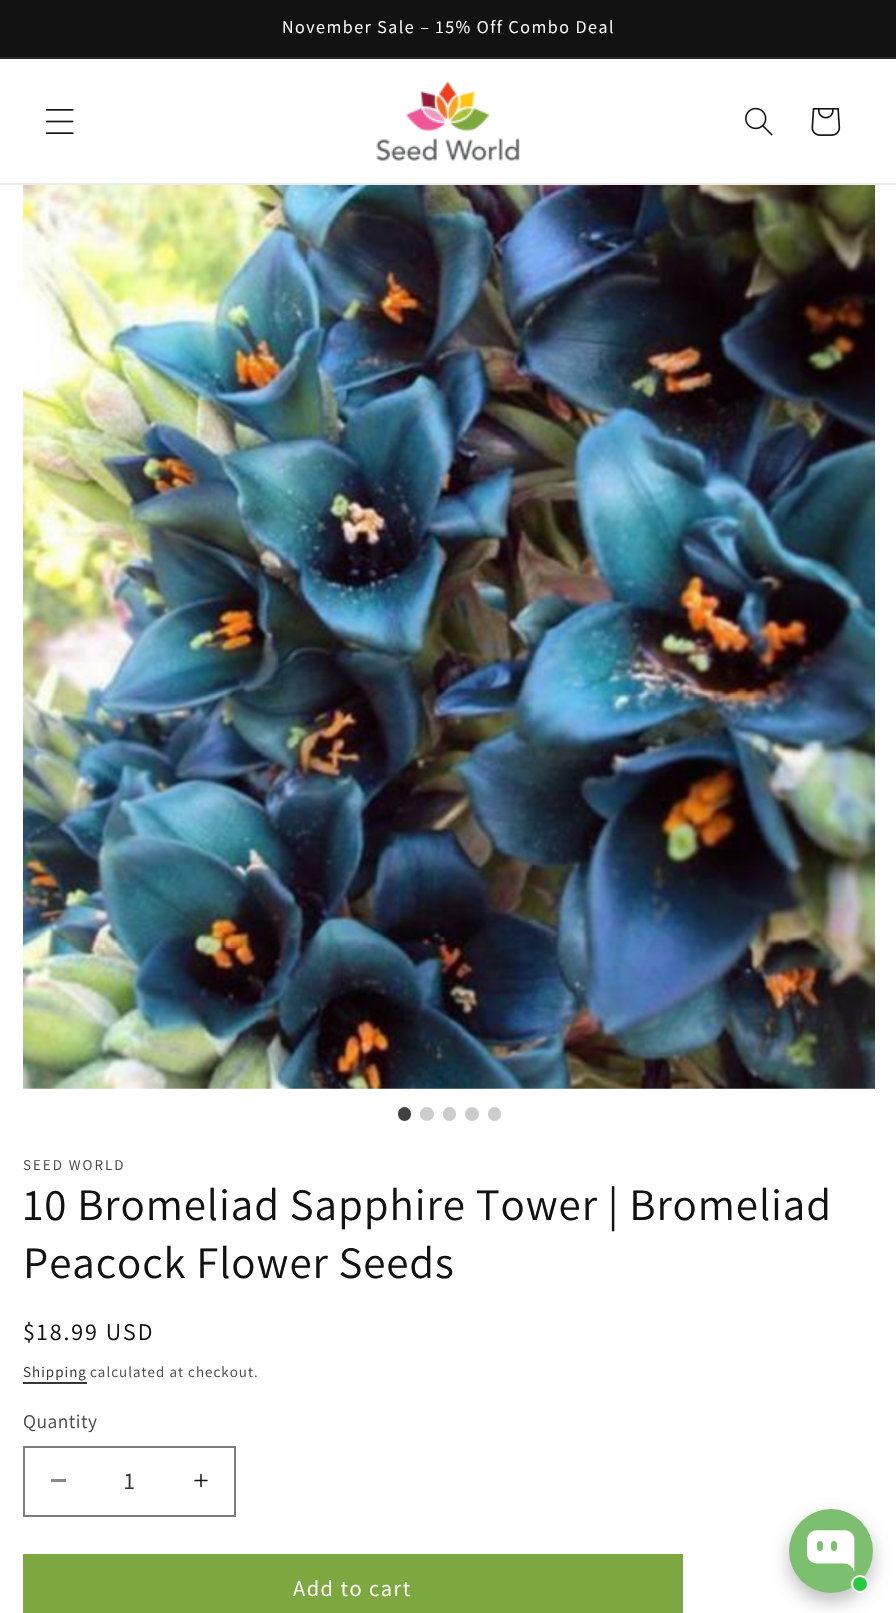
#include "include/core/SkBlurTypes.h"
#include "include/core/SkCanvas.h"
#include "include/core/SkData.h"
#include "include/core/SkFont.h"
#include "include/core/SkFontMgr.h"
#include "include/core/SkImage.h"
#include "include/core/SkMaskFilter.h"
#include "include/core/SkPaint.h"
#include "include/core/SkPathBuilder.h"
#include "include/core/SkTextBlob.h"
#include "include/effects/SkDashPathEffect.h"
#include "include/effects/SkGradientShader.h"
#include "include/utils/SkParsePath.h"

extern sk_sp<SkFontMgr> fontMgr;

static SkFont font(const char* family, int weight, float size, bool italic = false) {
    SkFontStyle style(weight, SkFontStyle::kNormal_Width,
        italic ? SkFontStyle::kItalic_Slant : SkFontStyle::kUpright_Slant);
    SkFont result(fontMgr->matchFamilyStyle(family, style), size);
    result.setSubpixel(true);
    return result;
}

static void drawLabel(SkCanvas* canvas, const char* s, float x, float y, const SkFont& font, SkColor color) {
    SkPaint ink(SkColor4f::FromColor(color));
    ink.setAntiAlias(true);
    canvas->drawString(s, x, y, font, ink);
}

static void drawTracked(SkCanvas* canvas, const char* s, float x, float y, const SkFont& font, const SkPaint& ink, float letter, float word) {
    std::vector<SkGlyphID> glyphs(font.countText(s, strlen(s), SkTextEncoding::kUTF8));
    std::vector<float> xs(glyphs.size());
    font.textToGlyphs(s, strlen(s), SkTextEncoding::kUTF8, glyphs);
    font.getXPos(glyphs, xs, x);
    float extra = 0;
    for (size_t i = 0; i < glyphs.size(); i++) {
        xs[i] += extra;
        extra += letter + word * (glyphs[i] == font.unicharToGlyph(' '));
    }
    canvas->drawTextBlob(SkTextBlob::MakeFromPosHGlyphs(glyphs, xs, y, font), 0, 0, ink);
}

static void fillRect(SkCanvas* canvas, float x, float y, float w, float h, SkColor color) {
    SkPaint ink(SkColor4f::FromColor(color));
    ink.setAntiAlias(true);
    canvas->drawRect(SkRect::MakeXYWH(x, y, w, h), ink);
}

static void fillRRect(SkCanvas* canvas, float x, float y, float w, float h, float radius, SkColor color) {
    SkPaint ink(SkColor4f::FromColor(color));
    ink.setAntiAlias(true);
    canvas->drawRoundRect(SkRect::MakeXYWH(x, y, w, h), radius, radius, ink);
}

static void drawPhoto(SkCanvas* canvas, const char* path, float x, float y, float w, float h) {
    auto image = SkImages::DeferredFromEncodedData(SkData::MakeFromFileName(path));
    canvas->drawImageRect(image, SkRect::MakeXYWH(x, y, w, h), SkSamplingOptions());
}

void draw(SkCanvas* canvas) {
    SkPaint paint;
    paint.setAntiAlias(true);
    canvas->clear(0xFFFFFFFF);
    fillRect(canvas, 0, 0, 896, 57, 0xFF121212);
    fillRect(canvas, 0, 57, 896, 2, 0xFF252525);
    SkFont font1 = font("Assistant", 400, 18);
    paint.setColor(0xFFFFFFFF);
    drawTracked(canvas, "November Sale – 15% Off Combo Deal", 282, 33, font1, paint, 1.5f, 0);
    fillRect(canvas, 0, 183, 896, 2, 0xFFECECEC);
    drawPhoto(canvas, "assets/img1.png", 45, 109, 29, 25);
    drawPhoto(canvas, "assets/img2.png", 376, 81, 144, 80);
    drawPhoto(canvas, "assets/img3.png", 745, 107, 28, 29);
    drawPhoto(canvas, "assets/img4.png", 811, 108, 30, 28);
    drawPhoto(canvas, "assets/img5.png", 23, 185, 852, 904);
    fillRRect(canvas, 398, 1107, 13, 14, 6.5f, 0xFF404040);
    paint.setColor(0xFFCCCCCC);
    canvas->drawCircle(427, 1114, 7, paint);
    fillRRect(canvas, 443, 1107, 13, 14, 6.5f, 0xFFCCCCCC);
    canvas->drawCircle(472, 1114, 7, paint);
    fillRRect(canvas, 488, 1107, 13, 14, 6.5f, 0xFFCCCCCC);
    SkFont font2 = font("Assistant", 400, 15);
    paint.setColor(0xFF4D4D4D);
    drawTracked(canvas, "SEED WORLD", 23, 1170, font2, paint, 2, 0);
    SkFont font3 = font("Assistant", 400, 45);
    paint.setColor(0xFF121212);
    drawTracked(canvas, "10 Bromeliad Sapphire Tower | Bromeliad", 23, 1220, font3, paint, 0.9f, 0);
    drawTracked(canvas, "Peacock Flower Seeds", 23, 1278, font3, paint, 0.9f, 0);
    SkFont font4 = font("Assistant", 400, 24);
    drawTracked(canvas, "$18.99 USD", 23, 1340, font4, paint, 2, 0);
    paint.setColor(0xFF363636);
    drawTracked(canvas, "Shipping", 23, 1377, font2, paint, 1.05f, 0);
    fillRect(canvas, 23, 1382, 64, 2, 0xFF363636);
    paint.setColor(0xFF4D4D4D);
    drawTracked(canvas, "calculated at checkout.", 90, 1377, font2, paint, 1.05f, 0);
    SkFont font5 = font("Assistant", 400, 19.5f);
    drawTracked(canvas, "Quantity", 23, 1428, font5, paint, 0.5f, 0);
    fillRect(canvas, 51, 1479, 15, 3, 0xFF898989);
    drawPhoto(canvas, "assets/img6.png", 194, 1473, 14, 15);
    paint.setStroke(true);
    paint.setStrokeWidth(2);
    paint.setColor(0xFF7D7D7D);
    canvas->drawRect(SkRect::MakeXYWH(24, 1447, 211, 69), paint);
    drawLabel(canvas, "1", 124, 1489, font4, 0xFF363636);
    fillRect(canvas, 23, 1554, 660, 59, 0xFF7DA840);
    SkFont font6 = font("Assistant", 400, 22.5f);
    paint.setStroke(false);
    paint.setColor(0xFFFFFFFF);
    drawTracked(canvas, "Add to cart", 293, 1596, font6, paint, 1.5f, 0);
    paint.setColor(0x40000000);
    paint.setMaskFilter(SkMaskFilter::MakeBlur(kNormal_SkBlurStyle, 9));
    canvas->drawRoundRect(SkRect::MakeXYWH(789, 1518, 84, 84), 42, 42, paint);
    paint.setMaskFilter(nullptr);
    paint.setColor(0xFF7BBF6F);
    canvas->drawCircle(831, 1551, 42, paint);
    drawPhoto(canvas, "assets/img7.png", 807, 1530, 48, 41);
    paint.setColor(0xFF27CA40);
    canvas->drawCircle(860, 1584, 8, paint);
    paint.setStroke(true);
    paint.setColor(0xFFFFFFFF);
    canvas->drawCircle(860, 1584, 8, paint);
}
